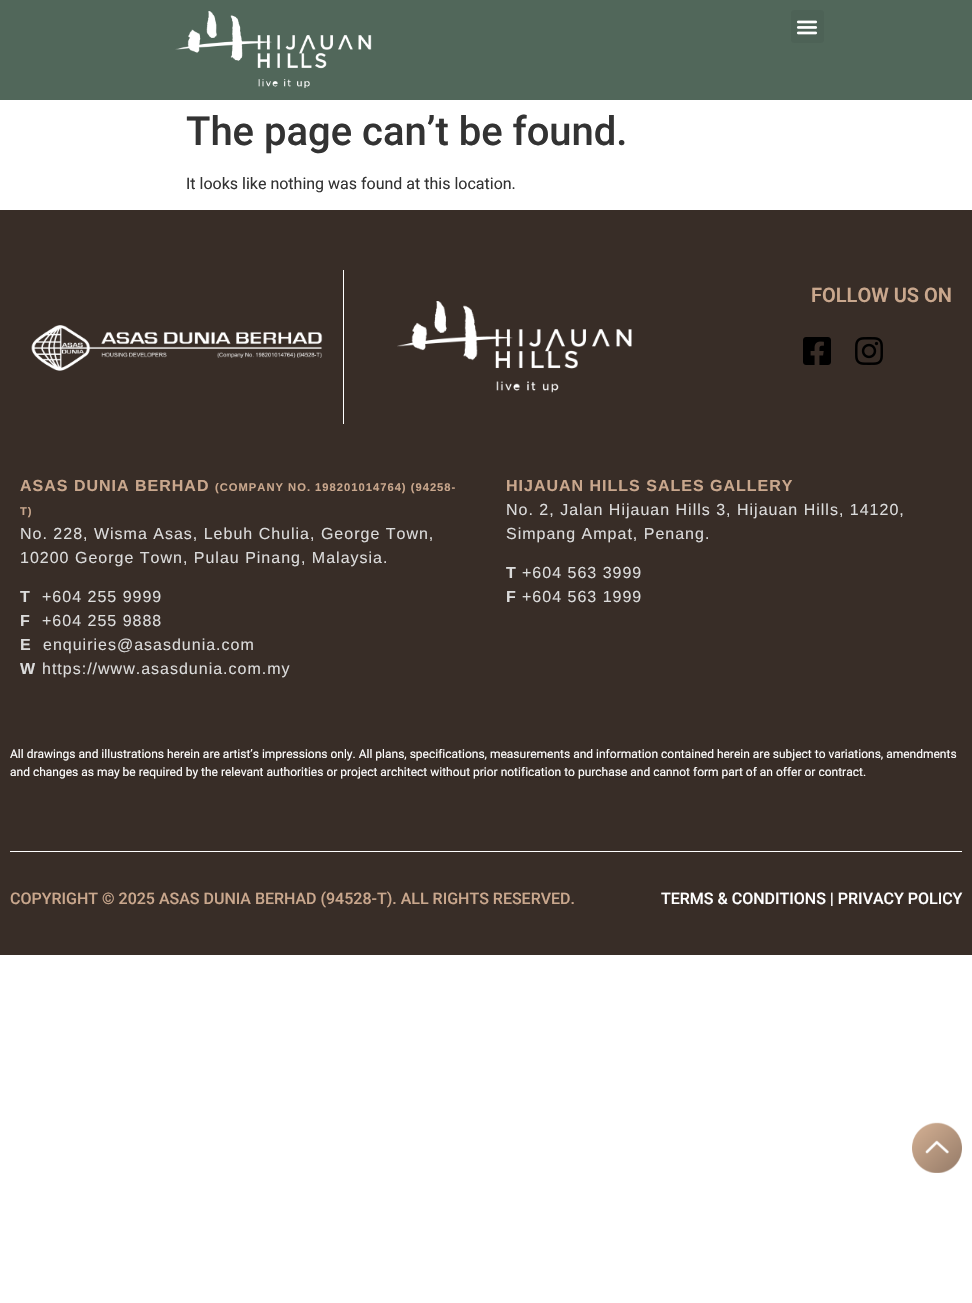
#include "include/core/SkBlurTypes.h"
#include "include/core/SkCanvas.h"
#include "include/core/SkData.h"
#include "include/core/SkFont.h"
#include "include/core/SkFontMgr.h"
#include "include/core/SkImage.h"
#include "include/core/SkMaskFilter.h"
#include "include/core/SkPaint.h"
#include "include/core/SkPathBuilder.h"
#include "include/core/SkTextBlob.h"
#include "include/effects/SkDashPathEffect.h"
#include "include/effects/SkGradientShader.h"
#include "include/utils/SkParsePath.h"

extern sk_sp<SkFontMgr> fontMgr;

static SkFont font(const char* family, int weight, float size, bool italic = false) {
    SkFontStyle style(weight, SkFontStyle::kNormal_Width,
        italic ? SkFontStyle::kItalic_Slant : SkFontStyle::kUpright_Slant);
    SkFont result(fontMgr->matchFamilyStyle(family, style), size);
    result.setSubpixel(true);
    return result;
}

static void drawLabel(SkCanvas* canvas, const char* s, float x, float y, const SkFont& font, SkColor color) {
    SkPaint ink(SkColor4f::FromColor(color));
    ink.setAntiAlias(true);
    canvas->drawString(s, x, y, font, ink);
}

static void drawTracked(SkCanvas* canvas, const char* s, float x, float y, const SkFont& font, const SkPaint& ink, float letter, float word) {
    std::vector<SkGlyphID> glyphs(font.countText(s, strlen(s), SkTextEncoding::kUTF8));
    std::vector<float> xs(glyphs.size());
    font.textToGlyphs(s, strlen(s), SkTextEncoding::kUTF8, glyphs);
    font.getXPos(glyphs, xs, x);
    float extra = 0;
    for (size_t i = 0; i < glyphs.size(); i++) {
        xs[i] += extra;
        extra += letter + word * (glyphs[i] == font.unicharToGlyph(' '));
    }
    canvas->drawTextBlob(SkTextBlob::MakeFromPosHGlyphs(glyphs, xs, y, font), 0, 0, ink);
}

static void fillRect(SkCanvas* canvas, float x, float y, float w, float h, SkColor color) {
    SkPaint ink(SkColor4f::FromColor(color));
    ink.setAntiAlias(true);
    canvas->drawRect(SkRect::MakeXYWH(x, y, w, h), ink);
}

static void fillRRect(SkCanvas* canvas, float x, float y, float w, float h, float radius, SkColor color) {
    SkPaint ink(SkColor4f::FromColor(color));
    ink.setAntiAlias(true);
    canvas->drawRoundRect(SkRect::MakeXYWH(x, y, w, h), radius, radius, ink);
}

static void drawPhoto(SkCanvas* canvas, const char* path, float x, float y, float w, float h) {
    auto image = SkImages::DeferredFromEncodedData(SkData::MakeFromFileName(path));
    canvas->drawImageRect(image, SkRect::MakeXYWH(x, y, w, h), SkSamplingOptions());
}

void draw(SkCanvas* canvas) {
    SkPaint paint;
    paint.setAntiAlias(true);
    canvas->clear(0xFFFFFFFF);
    fillRect(canvas, 0, 0, 972, 100, 0xFF51675A);
    drawPhoto(canvas, "assets/img1.png", 175, 11, 197, 77);
    fillRRect(canvas, 791, 10, 33, 33, 3, 0xFF4D6256);
    drawPhoto(canvas, "assets/img2.png", 796, 20, 22, 15);
    SkFont font1 = font("Roboto", 500, 40);
    drawLabel(canvas, "The page can’t be found.", 186, 145, font1, 0xFF333333);
    SkFont font2 = font("Roboto", 400, 16);
    drawLabel(canvas, "It looks like nothing was found at this location.", 186, 189, font2, 0xFF333333);
    fillRect(canvas, 0, 210, 972, 745, 0xFF382D27);
    fillRect(canvas, 343, 270, 1, 154, 0xFFFFFFFF);
    drawPhoto(canvas, "assets/img3.png", 397, 301, 235, 92);
    SkFont font3 = font("Roboto", 600, 20);
    drawLabel(canvas, "FOLLOW US ON", 811, 302, font3, 0xFFC9A78D);
    drawPhoto(canvas, "assets/img4.png", 803, 337, 28, 28);
    drawPhoto(canvas, "assets/img5.png", 855, 337, 28, 28);
    drawPhoto(canvas, "assets/img6.png", 31, 325, 292, 46);
    SkFont font4 = font("Liberation Sans", 700, 16);
    paint.setColor(0xFFC9A78D);
    drawTracked(canvas, "ASAS DUNIA BERHAD", 20, 491, font4, paint, 1, 0);
    SkFont font5 = font("Liberation Sans", 700, 11.2f);
    drawTracked(canvas, "(COMPANY NO. 198201014764) (94258-", 215, 491, font5, paint, 1, 0);
    drawTracked(canvas, "T)", 20, 515, font5, paint, 1, 0);
    SkFont font6 = font("Liberation Sans", 400, 16);
    paint.setColor(0xFFDBDBDB);
    drawTracked(canvas, "No. 228, Wisma Asas, Lebuh Chulia, George Town,", 20, 539, font6, paint, 1, 0);
    drawTracked(canvas, "10200 George Town, Pulau Pinang, Malaysia.", 20, 563, font6, paint, 1, 0);
    drawTracked(canvas, "T", 20, 602, font4, paint, 1, 0);
    drawTracked(canvas, "+604 255 9999", 42, 602, font6, paint, 1, 0);
    drawTracked(canvas, "F", 20, 626, font4, paint, 1, 0);
    drawTracked(canvas, "+604 255 9888", 42, 626, font6, paint, 1, 0);
    drawTracked(canvas, "E", 20, 650, font4, paint, 1, 0);
    drawTracked(canvas, "enquiries@asasdunia.com", 43, 650, font6, paint, 1, 0);
    drawTracked(canvas, "W", 20, 674, font4, paint, 1, 0);
    drawTracked(canvas, "https://www.asasdunia.com.my", 42, 674, font6, paint, 1, 0);
    paint.setColor(0xFFC9A78D);
    drawTracked(canvas, "HIJAUAN HILLS SALES GALLERY", 506, 491, font4, paint, 1, 0);
    paint.setColor(0xFFDBDBDB);
    drawTracked(canvas, "No. 2, Jalan Hijauan Hills 3, Hijauan Hills, 14120,", 506, 515, font6, paint, 1, 0);
    drawTracked(canvas, "Simpang Ampat, Penang.", 506, 539, font6, paint, 1, 0);
    drawTracked(canvas, "T", 506, 578, font4, paint, 1, 0);
    drawTracked(canvas, "+604 563 3999", 522, 578, font6, paint, 1, 0);
    drawTracked(canvas, "F", 506, 602, font4, paint, 1, 0);
    drawTracked(canvas, "+604 563 1999", 522, 602, font6, paint, 1, 0);
    SkFont font7 = font("Roboto", 400, 12);
    drawLabel(canvas, "All drawings and illustrations herein are artist’s impressions only. All plans, specifications, measurements and information contained herein are subject to variations, amendments", 10, 758, font7, 0xFFFFFFFF);
    drawLabel(canvas, "and changes as may be required by the relevant authorities or project architect without prior notification to purchase and cannot form part of an offer or contract.", 10, 776, font7, 0xFFFFFFFF);
    fillRect(canvas, 10, 851, 952, 1, 0xFFFFFFFF);
    SkFont font8 = font("Roboto", 500, 16);
    drawLabel(canvas, "COPYRIGHT © 2025 ASAS DUNIA BERHAD (94528-T). ALL RIGHTS RESERVED.", 10, 904, font8, 0xFFC9A78D);
    drawLabel(canvas, "TERMS & CONDITIONS | PRIVACY POLICY", 661, 904, font8, 0xFFFFFFFF);
    drawPhoto(canvas, "assets/img7.png", 912, 1122, 50, 51);
}
